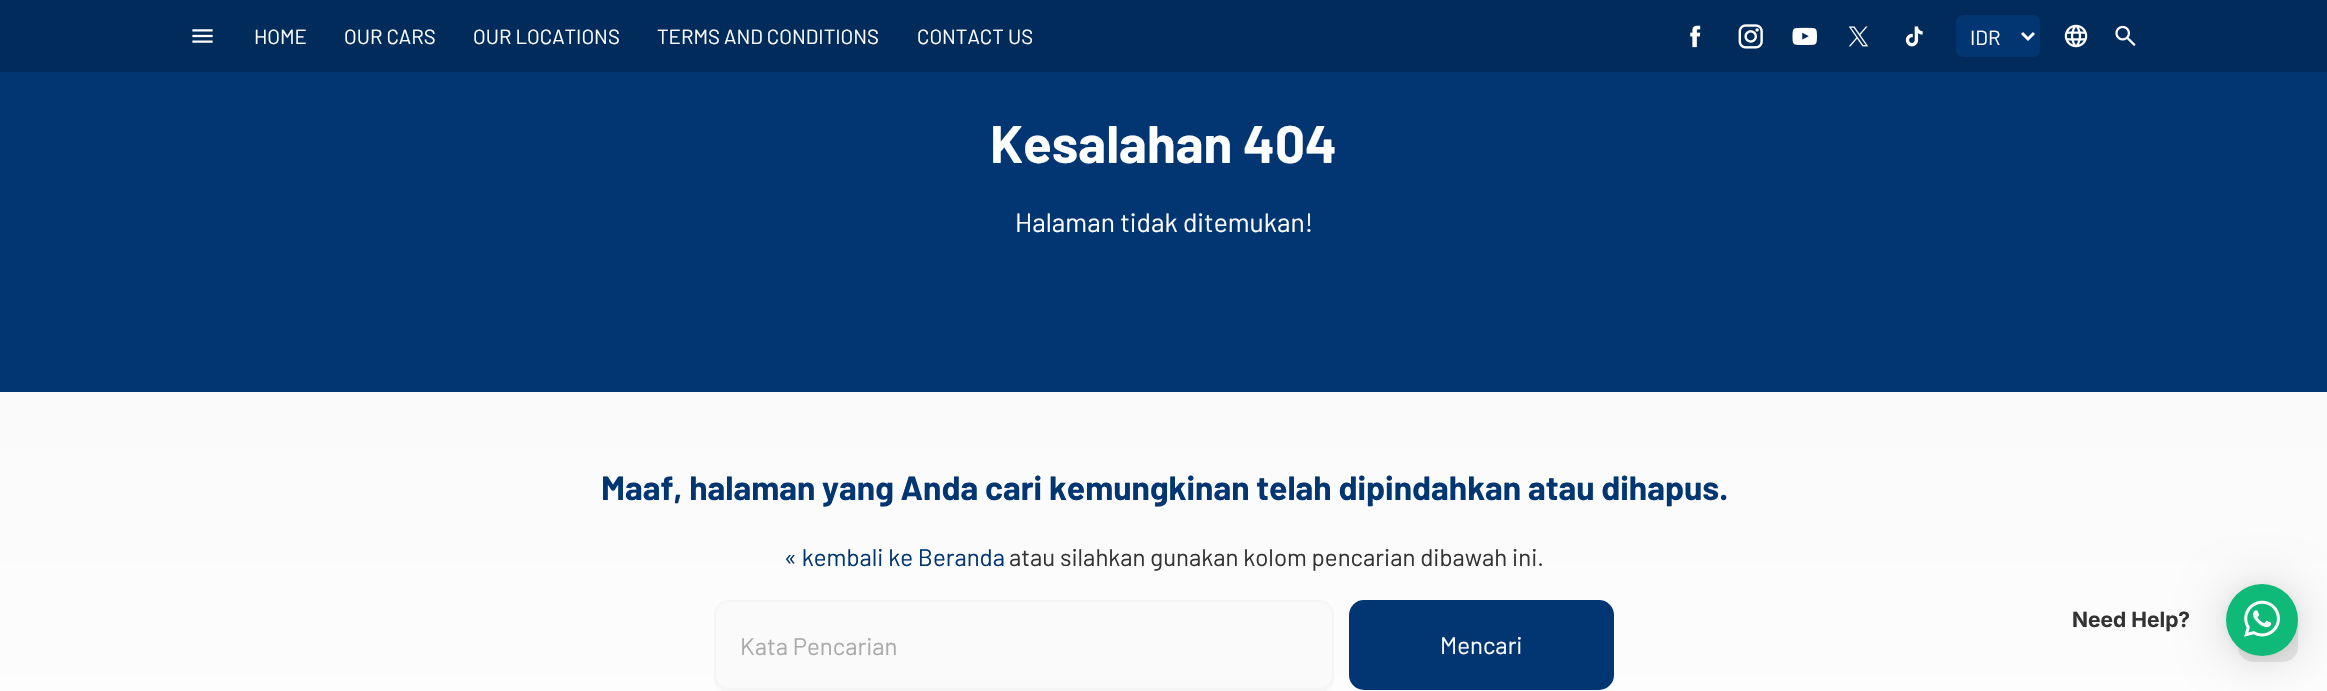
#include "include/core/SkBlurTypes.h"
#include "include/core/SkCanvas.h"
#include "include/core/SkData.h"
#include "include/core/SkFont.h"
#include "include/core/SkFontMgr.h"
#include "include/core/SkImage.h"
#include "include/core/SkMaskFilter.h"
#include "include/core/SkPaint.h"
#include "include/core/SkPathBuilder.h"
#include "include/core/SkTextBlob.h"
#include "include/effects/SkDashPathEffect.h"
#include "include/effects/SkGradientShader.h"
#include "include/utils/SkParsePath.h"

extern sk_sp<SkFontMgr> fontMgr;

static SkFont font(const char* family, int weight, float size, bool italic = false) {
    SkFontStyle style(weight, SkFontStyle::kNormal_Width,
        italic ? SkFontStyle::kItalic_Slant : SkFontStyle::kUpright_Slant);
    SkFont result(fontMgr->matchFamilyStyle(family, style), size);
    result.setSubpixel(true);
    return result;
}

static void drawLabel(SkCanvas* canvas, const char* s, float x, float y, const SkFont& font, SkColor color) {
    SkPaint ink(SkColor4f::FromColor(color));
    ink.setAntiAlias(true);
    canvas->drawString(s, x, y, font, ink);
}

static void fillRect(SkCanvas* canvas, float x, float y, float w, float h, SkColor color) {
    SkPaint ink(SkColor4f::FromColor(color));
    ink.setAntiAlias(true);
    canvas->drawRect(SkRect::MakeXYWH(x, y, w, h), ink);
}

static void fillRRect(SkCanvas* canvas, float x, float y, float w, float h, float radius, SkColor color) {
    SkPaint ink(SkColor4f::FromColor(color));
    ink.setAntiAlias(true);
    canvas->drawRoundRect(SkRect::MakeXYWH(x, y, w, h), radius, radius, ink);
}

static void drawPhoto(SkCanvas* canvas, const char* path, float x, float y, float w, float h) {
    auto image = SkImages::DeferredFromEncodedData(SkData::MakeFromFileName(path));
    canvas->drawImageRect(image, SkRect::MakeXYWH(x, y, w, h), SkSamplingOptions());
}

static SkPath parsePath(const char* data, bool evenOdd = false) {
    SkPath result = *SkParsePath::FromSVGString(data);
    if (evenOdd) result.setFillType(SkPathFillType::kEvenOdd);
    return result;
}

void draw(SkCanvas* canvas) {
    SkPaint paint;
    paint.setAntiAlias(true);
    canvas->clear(0xFF013672);
    fillRect(canvas, 0, 0, 2327, 72, 0xFF012B5B);
    drawPhoto(canvas, "assets/img1.png", 192, 29, 21, 14);
    SkFont font1 = font("Barlow", 400, 20.4f);
    drawLabel(canvas, "HOME", 254, 44, font1, 0xFFFFFFFF);
    drawLabel(canvas, "OUR CARS", 344, 44, font1, 0xFFFFFFFF);
    drawLabel(canvas, "OUR LOCATIONS", 473, 44, font1, 0xFFFFFFFF);
    drawLabel(canvas, "TERMS AND CONDITIONS", 657, 44, font1, 0xFFFFFFFF);
    drawLabel(canvas, "CONTACT US", 917, 44, font1, 0xFFFFFFFF);
    drawPhoto(canvas, "assets/img2.png", 1690, 25, 11, 23);
    drawPhoto(canvas, "assets/img3.png", 1738, 24, 25, 25);
    drawPhoto(canvas, "assets/img4.png", 1792, 27, 25, 18);
    drawPhoto(canvas, "assets/img5.png", 1848, 26, 21, 21);
    drawPhoto(canvas, "assets/img6.png", 1905, 26, 18, 21);
    fillRRect(canvas, 1956, 15, 84, 42, 8, 0xFF013672);
    paint.setStroke(true);
    paint.setStrokeWidth(3);
    paint.setColor(0xFFFFFFFF);
    canvas->drawPath(parsePath("M2022 33L2028 39L2034 33"), paint);
    drawLabel(canvas, "IDR", 1970, 45, font1, 0xFFFFFFFF);
    drawPhoto(canvas, "assets/img7.png", 2064, 24, 24, 24);
    drawPhoto(canvas, "assets/img8.png", 2115, 25, 21, 21);
    SkFont font2 = font("Barlow", 700, 52.75f);
    drawLabel(canvas, "Kesalahan 404", 990, 163, font2, 0xFFFFFFFF);
    SkFont font3 = font("Barlow", 400, 26.4f);
    drawLabel(canvas, "Halaman tidak ditemukan!", 1015, 232, font3, 0xFFFFFFFF);
    paint.setStroke(false);
    {
        const SkColor colors[] = {0xFFFAFAFA, 0xFFFEFEFE};
        const float stops[] = {0, 1};
        const SkPoint ends[] = {{1164, 391}, {1164, 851}};
        paint.setShader(SkGradientShader::MakeLinear(ends, colors, stops, 2, SkTileMode::kClamp));
        paint.setAlpha(255);
    }
    canvas->drawRect(SkRect::MakeXYWH(0, 392, 2327, 299), paint);
    SkFont font4 = font("Barlow", 700, 33.6f);
    drawLabel(canvas, "Maaf, halaman yang Anda cari kemungkinan telah dipindahkan atau dihapus.", 601, 500, font4, 0xFF013672);
    SkFont font5 = font("Barlow", 400, 24);
    drawLabel(canvas, "« kembali ke Beranda", 784, 566, font5, 0xFF013672);
    drawLabel(canvas, "atau silahkan gunakan kolom pencarian dibawah ini.", 1009, 566, font5, 0xFF333333);
    paint.setShader(nullptr);
    paint.setColor(0xFFF6F6F6);
    canvas->drawPath(parsePath("M714 675V678C714 686 721 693 729 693H1319C1327 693 1334 686 1334 678V618L1333 614L1334 675C1334 683 1327 690 1318 690H729C721 690 714 683 714 675Z"), paint);
    paint.setColor(0xFFFAFAFA);
    canvas->drawRoundRect(SkRect::MakeXYWH(715, 601, 618, 88), 14, 14, paint);
    paint.setStroke(true);
    paint.setStrokeWidth(2);
    paint.setColor(0xFFF5F5F5);
    canvas->drawRoundRect(SkRect::MakeXYWH(715, 601, 618, 88), 14, 14, paint);
    drawLabel(canvas, "Kata Pencarian", 740, 655, font5, 0xFFAAAAAA);
    fillRRect(canvas, 1349, 600, 265, 90, 15, 0xFF013672);
    drawLabel(canvas, "Mencari", 1440, 654, font5, 0xFFFFFFFF);
    fillRRect(canvas, 2238, 602, 60, 60, 15, 0xFFE7E7E7);
    paint.setStroke(false);
    paint.setColor(0x29000000);
    paint.setMaskFilter(SkMaskFilter::MakeBlur(kNormal_SkBlurStyle, 24));
    canvas->drawRoundRect(SkRect::MakeXYWH(2226, 587, 72, 72), 36, 36, paint);
    paint.setMaskFilter(nullptr);
    paint.setColor(0x0F000000);
    paint.setMaskFilter(SkMaskFilter::MakeBlur(kNormal_SkBlurStyle, 4.5f));
    canvas->drawRoundRect(SkRect::MakeXYWH(2226, 585, 72, 72), 36, 36, paint);
    paint.setMaskFilter(nullptr);
    paint.setColor(0xFF0FB978);
    canvas->drawCircle(2262, 620, 36, paint);
    SkFont font6 = font("Inter", 700, 21);
    drawLabel(canvas, "Need Help?", 2072, 627, font6, 0xFF333333);
    drawPhoto(canvas, "assets/img9.png", 2244, 600, 36, 37);
}
